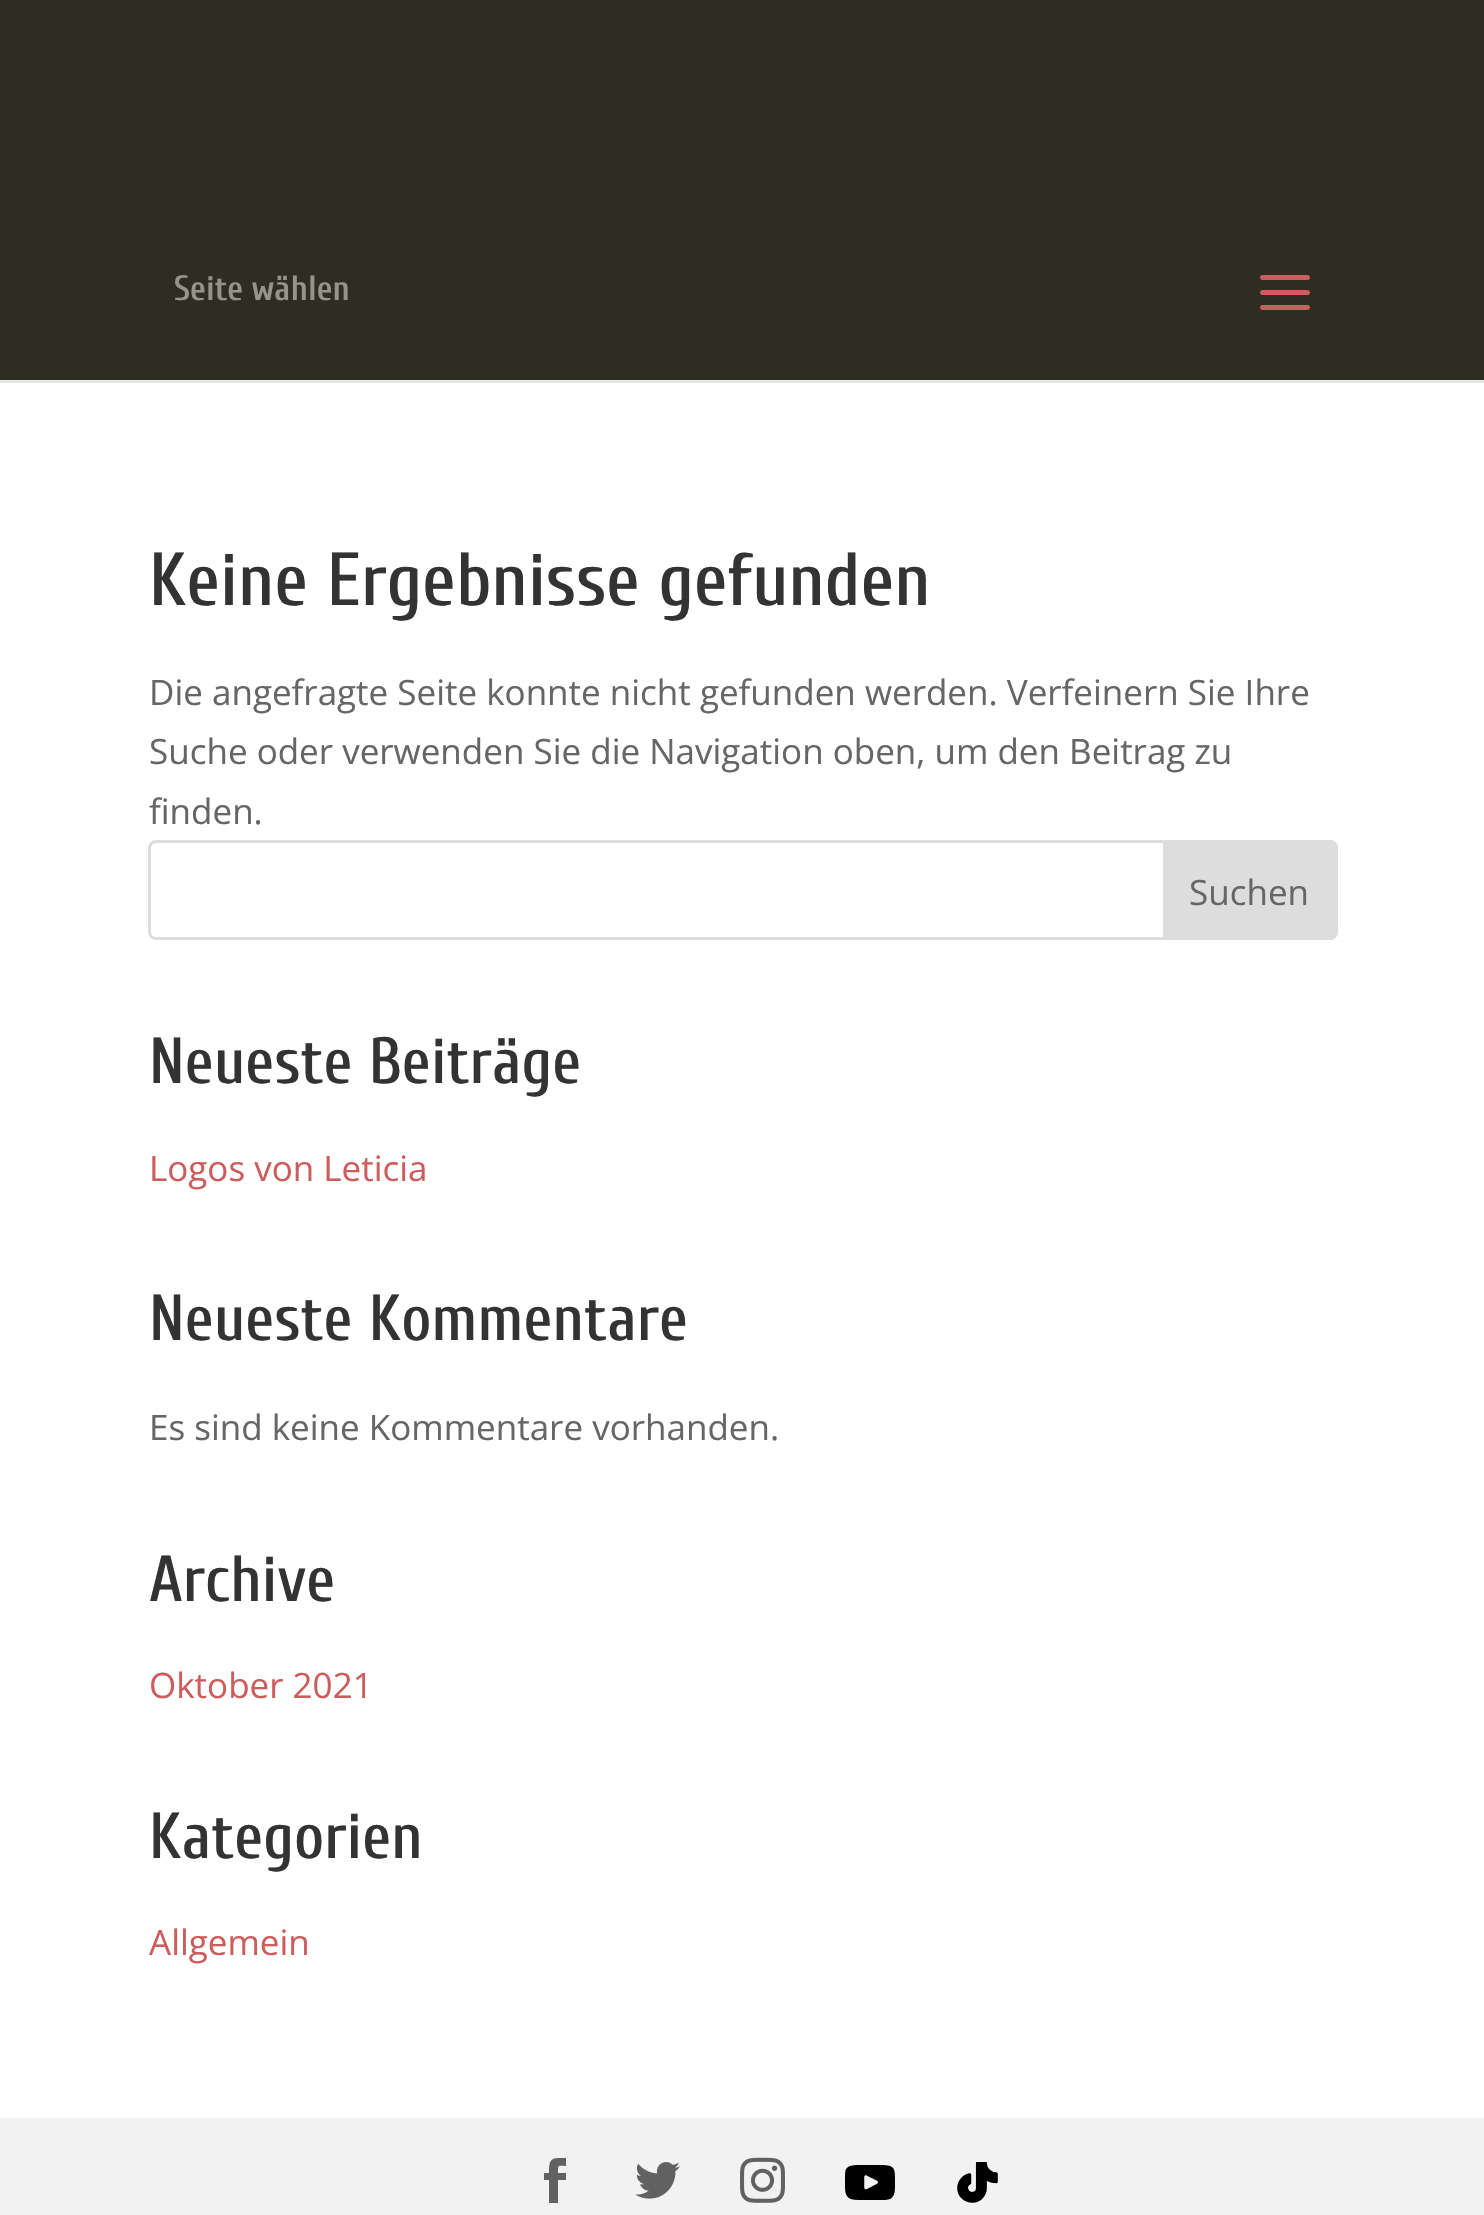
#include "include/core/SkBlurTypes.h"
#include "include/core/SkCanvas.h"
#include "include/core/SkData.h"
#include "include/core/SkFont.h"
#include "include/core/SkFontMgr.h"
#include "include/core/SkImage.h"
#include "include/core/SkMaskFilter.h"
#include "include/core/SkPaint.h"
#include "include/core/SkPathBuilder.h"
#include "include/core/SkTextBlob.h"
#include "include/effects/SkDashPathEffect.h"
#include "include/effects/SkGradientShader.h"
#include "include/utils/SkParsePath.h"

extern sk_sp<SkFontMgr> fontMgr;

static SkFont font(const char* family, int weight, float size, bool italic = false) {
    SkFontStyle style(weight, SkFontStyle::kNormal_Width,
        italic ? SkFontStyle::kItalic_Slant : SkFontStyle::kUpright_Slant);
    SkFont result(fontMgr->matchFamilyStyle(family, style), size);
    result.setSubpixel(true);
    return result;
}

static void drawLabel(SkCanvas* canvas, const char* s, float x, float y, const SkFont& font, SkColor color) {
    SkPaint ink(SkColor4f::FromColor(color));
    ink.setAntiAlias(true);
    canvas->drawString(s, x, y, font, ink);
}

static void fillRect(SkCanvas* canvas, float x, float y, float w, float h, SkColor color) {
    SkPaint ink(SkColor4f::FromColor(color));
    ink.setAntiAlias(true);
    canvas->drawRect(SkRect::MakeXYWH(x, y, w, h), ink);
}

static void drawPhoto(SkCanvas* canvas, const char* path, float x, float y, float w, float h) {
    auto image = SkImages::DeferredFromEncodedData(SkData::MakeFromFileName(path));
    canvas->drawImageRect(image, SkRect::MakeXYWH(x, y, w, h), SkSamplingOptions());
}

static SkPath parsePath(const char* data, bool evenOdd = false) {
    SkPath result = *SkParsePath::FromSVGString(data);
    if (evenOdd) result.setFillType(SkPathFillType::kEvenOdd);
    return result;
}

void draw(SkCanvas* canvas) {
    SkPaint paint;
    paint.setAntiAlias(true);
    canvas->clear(0xFFFFFFFF);
    fillRect(canvas, 0, 380, 1484, 3, 0xFFE6E6E6);
    fillRect(canvas, 0, 0, 1484, 380, 0xFF2D2D21);
    SkFont font1 = font("Cuprum", 600, 35);
    drawLabel(canvas, "Seite wählen", 174, 300, font1, 0xFF969388);
    drawPhoto(canvas, "assets/img1.png", 1260, 275, 50, 35);
    SkFont font2 = font("Cuprum", 500, 75);
    drawLabel(canvas, "Keine Ergebnisse gefunden", 149, 605, font2, 0xFF333333);
    SkFont font3 = font("Open Sans", 400, 35);
    drawLabel(canvas, "Die angefragte Seite konnte nicht gefunden werden. Verfeinern Sie Ihre", 149, 705, font3, 0xFF666666);
    drawLabel(canvas, "Suche oder verwenden Sie die Navigation oben, um den Beitrag zu", 149, 764, font3, 0xFF666666);
    drawLabel(canvas, "finden.", 149, 824, font3, 0xFF666666);
    paint.setStroke(true);
    paint.setStrokeWidth(3);
    paint.setColor(0xFFDDDDDD);
    canvas->drawRoundRect(SkRect::MakeXYWH(149.5f, 841.5f, 1187, 97), 6.5f, 6.5f, paint);
    paint.setStroke(false);
    canvas->drawPath(parsePath("M1164.5 841.5H1330C1333.5 841.5 1336.5 844.5 1336.5 848V932C1336.5 935.5 1333.5 938.5 1330 938.5H1164.5Z"), paint);
    paint.setStroke(true);
    canvas->drawPath(parsePath("M1164.5 841.5H1330C1333.5 841.5 1336.5 844.5 1336.5 848V932C1336.5 935.5 1333.5 938.5 1330 938.5H1164.5Z"), paint);
    drawLabel(canvas, "Suchen", 1189, 905, font3, 0xFF666666);
    SkFont font4 = font("Cuprum", 500, 65);
    drawLabel(canvas, "Neueste Beiträge", 149, 1083, font4, 0xFF333333);
    drawLabel(canvas, "Logos von Leticia", 149, 1181, font3, 0xFFCD5C5C);
    drawLabel(canvas, "Neueste Kommentare", 149, 1340, font4, 0xFF333333);
    drawLabel(canvas, "Es sind keine Kommentare vorhanden.", 149, 1440, font3, 0xFF666666);
    drawLabel(canvas, "Archive", 149, 1601, font4, 0xFF333333);
    drawLabel(canvas, "Oktober 2021", 149, 1698, font3, 0xFFCD5C5C);
    drawLabel(canvas, "Kategorien", 149, 1858, font4, 0xFF333333);
    drawLabel(canvas, "Allgemein", 149, 1955, font3, 0xFFCD5C5C);
    fillRect(canvas, 0, 2118, 1484, 97, 0xFFF2F2F2);
    paint.setStroke(false);
    paint.setColor(0xFF616161);
    canvas->drawPath(parsePath("M549 2203H558V2180H566V2173H558C558 2164 558 2166 566 2166V2158C552 2158 549 2157 549 2173H544V2180H549Z"), paint);
    drawPhoto(canvas, "assets/img2.png", 635, 2162, 45, 37);
    drawPhoto(canvas, "assets/img3.png", 740, 2157, 45, 46);
    drawPhoto(canvas, "assets/img4.png", 845, 2165, 50, 35);
    drawPhoto(canvas, "assets/img5.png", 957, 2162, 41, 41);
}
